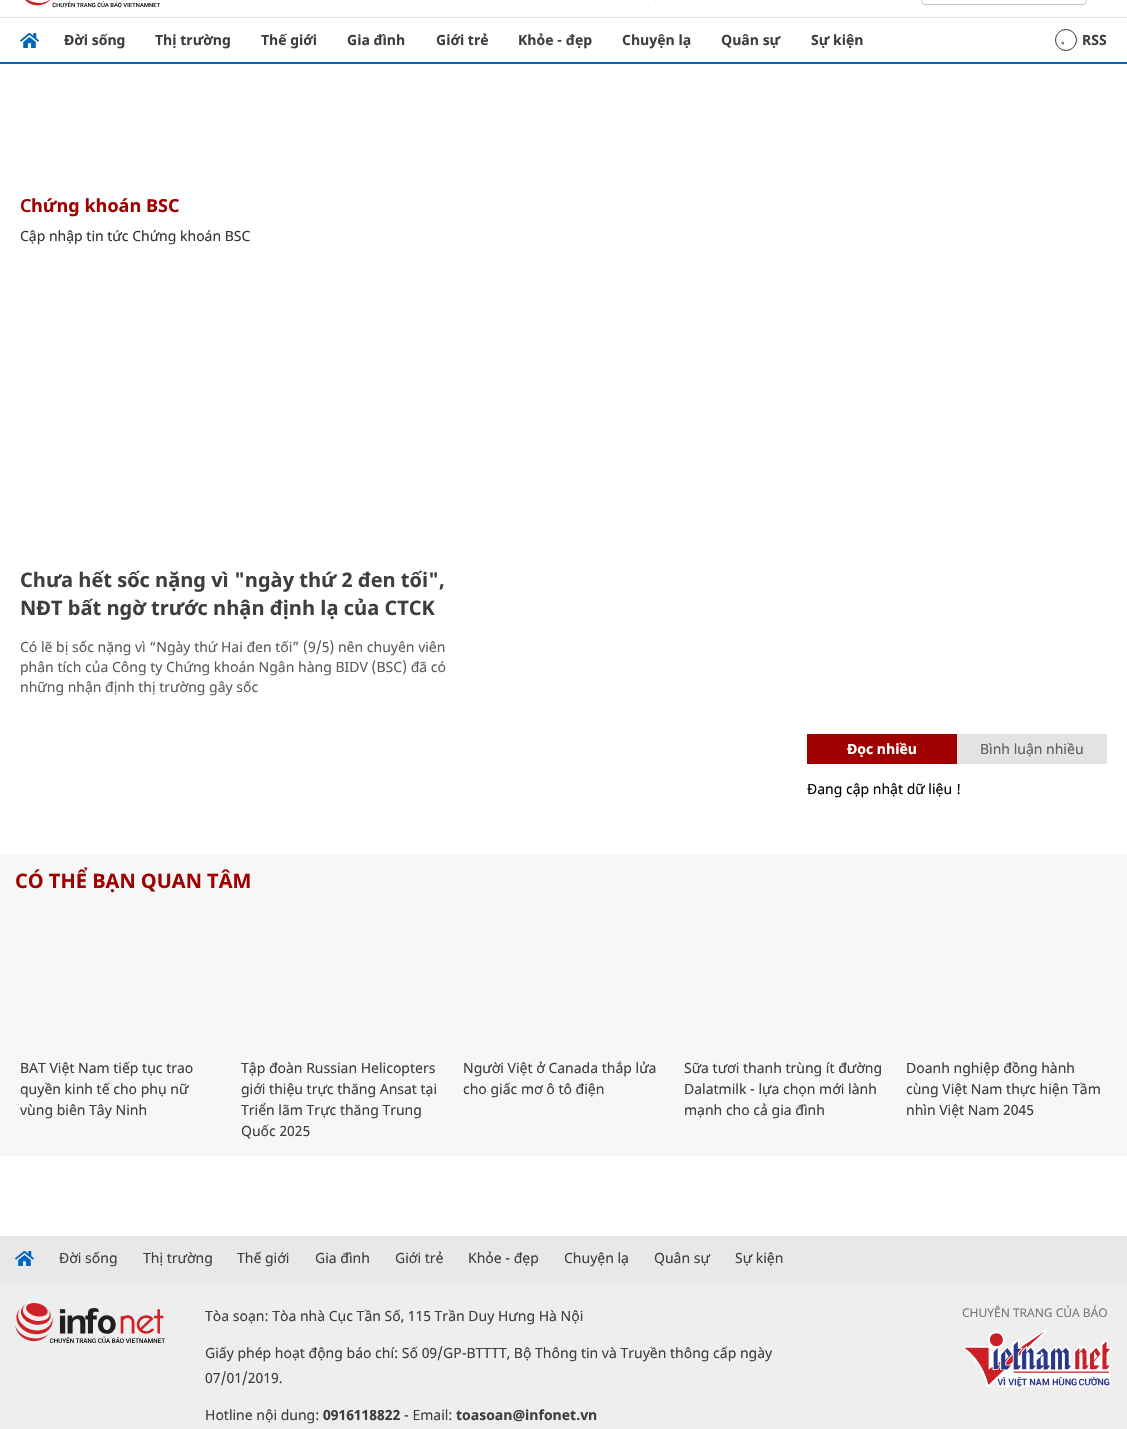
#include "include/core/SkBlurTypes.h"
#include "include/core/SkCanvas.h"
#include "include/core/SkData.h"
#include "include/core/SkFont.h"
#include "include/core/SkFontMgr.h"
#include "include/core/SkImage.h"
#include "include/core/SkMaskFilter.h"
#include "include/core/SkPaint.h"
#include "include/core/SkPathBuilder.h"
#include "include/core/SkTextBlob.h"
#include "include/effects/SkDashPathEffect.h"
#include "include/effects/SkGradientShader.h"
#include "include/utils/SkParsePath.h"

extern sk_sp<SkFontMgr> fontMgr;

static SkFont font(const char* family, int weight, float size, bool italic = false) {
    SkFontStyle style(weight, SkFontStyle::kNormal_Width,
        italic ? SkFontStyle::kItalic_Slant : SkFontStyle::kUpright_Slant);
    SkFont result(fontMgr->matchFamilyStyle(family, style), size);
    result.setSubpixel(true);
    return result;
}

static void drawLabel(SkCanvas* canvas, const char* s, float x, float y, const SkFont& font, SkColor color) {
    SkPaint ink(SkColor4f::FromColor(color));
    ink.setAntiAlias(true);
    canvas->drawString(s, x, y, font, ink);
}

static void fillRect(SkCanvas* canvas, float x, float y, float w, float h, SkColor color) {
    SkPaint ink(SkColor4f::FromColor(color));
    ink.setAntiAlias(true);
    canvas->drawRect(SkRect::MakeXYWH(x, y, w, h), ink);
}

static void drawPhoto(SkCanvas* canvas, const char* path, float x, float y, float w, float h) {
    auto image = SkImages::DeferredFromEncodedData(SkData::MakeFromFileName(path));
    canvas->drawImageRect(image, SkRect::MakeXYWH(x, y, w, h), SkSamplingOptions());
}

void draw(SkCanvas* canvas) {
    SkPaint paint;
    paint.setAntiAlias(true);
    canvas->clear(0xFFFFFFFF);
    fillRect(canvas, 0, 17, 1127, 1, 0xFFE2E2E2);
    drawPhoto(canvas, "assets/img1.png", 25, 0, 135, 8);
    drawPhoto(canvas, "assets/img2.png", 654, 0, 2, 1);
    paint.setStroke(true);
    paint.setStrokeWidth(1);
    paint.setColor(0xFFC4C4C4);
    canvas->drawRoundRect(SkRect::MakeXYWH(921.5f, -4.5f, 165, 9), 3.5f, 3.5f, paint);
    fillRect(canvas, 0, 62, 1127, 2, 0xFF0065BF);
    drawPhoto(canvas, "assets/img3.png", 20, 33, 19, 15);
    SkFont font1 = font("Noto Sans", 700, 14);
    drawLabel(canvas, "Đời sống", 64, 45, font1, 0xFF3E3E3E);
    drawLabel(canvas, "Thị trường", 155, 45, font1, 0xFF3E3E3E);
    drawLabel(canvas, "Thế giới", 261, 45, font1, 0xFF3E3E3E);
    drawLabel(canvas, "Gia đình", 347, 45, font1, 0xFF3E3E3E);
    drawLabel(canvas, "Giới trẻ", 436, 45, font1, 0xFF3E3E3E);
    drawLabel(canvas, "Khỏe - đẹp", 518, 45, font1, 0xFF3E3E3E);
    drawLabel(canvas, "Chuyện lạ", 622, 45, font1, 0xFF3E3E3E);
    drawLabel(canvas, "Quân sự", 721, 45, font1, 0xFF3E3E3E);
    drawLabel(canvas, "Sự kiện", 811, 45, font1, 0xFF3E3E3E);
    drawPhoto(canvas, "assets/img4.png", 1061, 41, 4, 4);
    paint.setColor(0xFF3E3E3E);
    canvas->drawCircle(1066, 40, 10.5f, paint);
    drawLabel(canvas, "RSS", 1082, 45, font1, 0xFF3E3E3E);
    SkFont font2 = font("Noto Sans", 600, 18);
    drawLabel(canvas, "C", 20, 212, font2, 0xFFA10000);
    SkFont font3 = font("Noto Sans", 700, 18);
    drawLabel(canvas, "hứng khoán BSC", 31, 212, font3, 0xFFA10000);
    SkFont font4 = font("Noto Sans", 400, 14);
    drawLabel(canvas, "Cập nhập tin tức Chứng khoán BSC", 20, 241, font4, 0xFF333333);
    SkFont font5 = font("Noto Sans", 700, 20);
    drawLabel(canvas, "Chưa hết sốc nặng vì \"ngày thứ 2 đen tối\",", 20, 587, font5, 0xFF3E3E3E);
    drawLabel(canvas, "NĐT bất ngờ trước nhận định lạ của CTCK", 20, 615, font5, 0xFF3E3E3E);
    drawLabel(canvas, "Có lẽ bị sốc nặng vì “Ngày thứ Hai đen tối” (9/5) nên chuyên viên", 20, 652, font4, 0xFF5D5D5D);
    drawLabel(canvas, "phân tích của Công ty Chứng khoán Ngân hàng BIDV (BSC) đã có", 20, 672, font4, 0xFF5D5D5D);
    drawLabel(canvas, "những nhận định thị trường gây sốc", 20, 692, font4, 0xFF5D5D5D);
    fillRect(canvas, 807, 734, 150, 30, 0xFFA10000);
    drawLabel(canvas, "Đọc nhiều", 847, 754, font1, 0xFFFFFFFF);
    fillRect(canvas, 957, 734, 150, 30, 0xFFE3E3E3);
    drawLabel(canvas, "Bình luận nhiều", 980, 754, font4, 0xFF5D5D5D);
    drawLabel(canvas, "Đang cập nhật dữ liệu !", 807, 794, font4, 0xFF000000);
    fillRect(canvas, 0, 854, 1127, 302, 0xFFF7F7F7);
    drawLabel(canvas, "CÓ THỂ BẠN QUAN TÂM", 15, 888, font5, 0xFFA10000);
    drawLabel(canvas, "BAT Việt Nam tiếp tục trao", 20, 1073, font4, 0xFF3E3E3E);
    drawLabel(canvas, "quyền kinh tế cho phụ nữ", 20, 1094, font4, 0xFF3E3E3E);
    drawLabel(canvas, "vùng biên Tây Ninh", 20, 1115, font4, 0xFF3E3E3E);
    drawLabel(canvas, "Tập đoàn Russian Helicopters", 241, 1073, font4, 0xFF3E3E3E);
    drawLabel(canvas, "giới thiệu trực thăng Ansat tại", 241, 1094, font4, 0xFF3E3E3E);
    drawLabel(canvas, "Triển lãm Trực thăng Trung", 241, 1115, font4, 0xFF3E3E3E);
    drawLabel(canvas, "Quốc 2025", 241, 1136, font4, 0xFF3E3E3E);
    drawLabel(canvas, "Người Việt ở Canada thắp lửa", 463, 1073, font4, 0xFF3E3E3E);
    drawLabel(canvas, "cho giấc mơ ô tô điện", 463, 1094, font4, 0xFF3E3E3E);
    drawLabel(canvas, "Sữa tươi thanh trùng ít đường", 684, 1073, font4, 0xFF3E3E3E);
    drawLabel(canvas, "Dalatmilk - lựa chọn mới lành", 684, 1094, font4, 0xFF3E3E3E);
    drawLabel(canvas, "mạnh cho cả gia đình", 684, 1115, font4, 0xFF3E3E3E);
    drawLabel(canvas, "Doanh nghiệp đồng hành", 906, 1073, font4, 0xFF3E3E3E);
    drawLabel(canvas, "cùng Việt Nam thực hiện Tầm", 906, 1094, font4, 0xFF3E3E3E);
    drawLabel(canvas, "nhìn Việt Nam 2045", 906, 1115, font4, 0xFF3E3E3E);
    fillRect(canvas, 0, 1236, 1127, 47, 0xFFE8E8E8);
    drawPhoto(canvas, "assets/img5.png", 15, 1251, 19, 15);
    drawLabel(canvas, "Đời sống", 59, 1263, font4, 0xFF3E3E3E);
    drawLabel(canvas, "Thị trường", 143, 1263, font4, 0xFF3E3E3E);
    drawLabel(canvas, "Thế giới", 237, 1263, font4, 0xFF3E3E3E);
    drawLabel(canvas, "Gia đình", 315, 1263, font4, 0xFF3E3E3E);
    drawLabel(canvas, "Giới trẻ", 395, 1263, font4, 0xFF3E3E3E);
    drawLabel(canvas, "Khỏe - đẹp", 468, 1263, font4, 0xFF3E3E3E);
    drawLabel(canvas, "Chuyện lạ", 564, 1263, font4, 0xFF3E3E3E);
    drawLabel(canvas, "Quân sự", 654, 1263, font4, 0xFF3E3E3E);
    drawLabel(canvas, "Sự kiện", 735, 1263, font4, 0xFF3E3E3E);
    fillRect(canvas, 0, 1283, 1127, 146, 0xFFEEEEEE);
    drawPhoto(canvas, "assets/img6.png", 15, 1303, 150, 40);
    drawLabel(canvas, "Tòa soạn: Tòa nhà Cục Tần Số, 115 Trần Duy Hưng Hà Nội", 205, 1321, font4, 0xFF3E3E3E);
    drawLabel(canvas, "Giấy phép hoạt động báo chí: Số 09/GP-BTTTT, Bộ Thông tin và Truyền thông cấp ngày", 205, 1358, font4, 0xFF3E3E3E);
    drawLabel(canvas, "07/01/2019.", 205, 1383, font4, 0xFF3E3E3E);
    drawLabel(canvas, "Hotline nội dung:", 205, 1420, font4, 0xFF3E3E3E);
    drawLabel(canvas, "0916118822", 323, 1420, font1, 0xFF3E3E3E);
    drawLabel(canvas, "- Email:", 404, 1420, font4, 0xFF3E3E3E);
    drawLabel(canvas, "toasoan@infonet.vn", 456, 1420, font1, 0xFF3E3E3E);
    SkFont font6 = font("Noto Sans", 400, 12);
    drawLabel(canvas, "CHUYÊN TRANG CỦA BÁO", 962, 1317, font6, 0xFF787878);
    drawPhoto(canvas, "assets/img7.png", 962, 1330, 150, 59);
}
